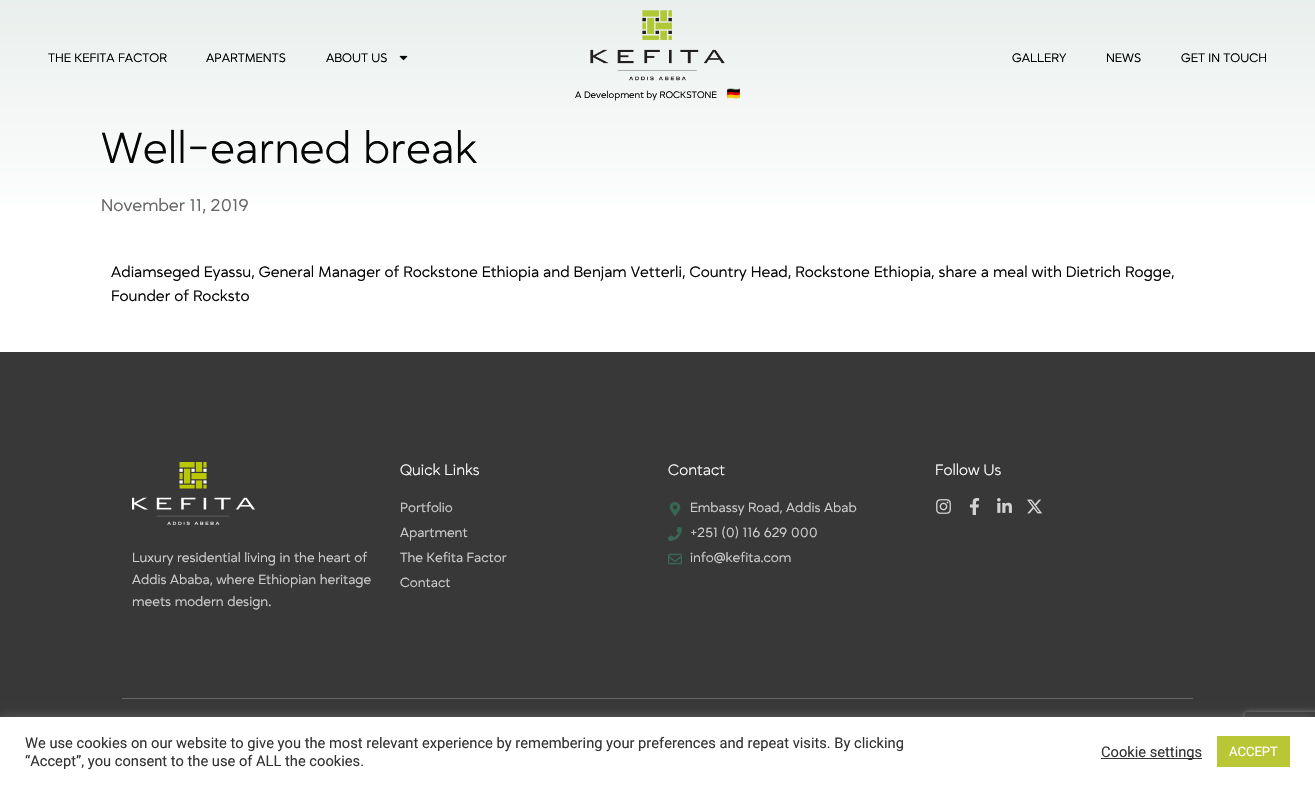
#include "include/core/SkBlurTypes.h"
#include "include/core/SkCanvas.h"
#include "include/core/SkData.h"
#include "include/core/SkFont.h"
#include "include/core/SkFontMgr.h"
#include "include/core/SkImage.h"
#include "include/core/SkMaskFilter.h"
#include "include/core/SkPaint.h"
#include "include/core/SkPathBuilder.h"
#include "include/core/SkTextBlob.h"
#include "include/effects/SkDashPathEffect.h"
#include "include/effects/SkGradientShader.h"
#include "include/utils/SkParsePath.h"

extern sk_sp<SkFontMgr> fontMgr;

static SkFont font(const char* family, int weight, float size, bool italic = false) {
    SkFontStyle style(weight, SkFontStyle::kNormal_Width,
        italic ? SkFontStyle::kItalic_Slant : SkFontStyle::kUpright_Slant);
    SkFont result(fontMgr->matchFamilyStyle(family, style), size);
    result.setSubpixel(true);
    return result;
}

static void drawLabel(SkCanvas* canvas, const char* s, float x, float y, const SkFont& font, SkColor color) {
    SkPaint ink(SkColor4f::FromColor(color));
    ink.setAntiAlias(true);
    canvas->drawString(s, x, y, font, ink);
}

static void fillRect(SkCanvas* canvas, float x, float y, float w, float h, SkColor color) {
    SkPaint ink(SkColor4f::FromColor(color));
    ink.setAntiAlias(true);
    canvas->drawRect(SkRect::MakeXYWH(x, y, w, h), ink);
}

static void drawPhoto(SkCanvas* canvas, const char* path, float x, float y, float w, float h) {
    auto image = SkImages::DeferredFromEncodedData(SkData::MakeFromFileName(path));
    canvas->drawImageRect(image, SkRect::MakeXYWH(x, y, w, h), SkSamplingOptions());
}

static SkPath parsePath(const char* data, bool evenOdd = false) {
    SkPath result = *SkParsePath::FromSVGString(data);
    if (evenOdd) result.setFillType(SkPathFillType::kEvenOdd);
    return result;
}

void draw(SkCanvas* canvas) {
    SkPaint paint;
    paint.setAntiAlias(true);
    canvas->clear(0xFFFFFFFF);
    {
        const SkColor colors[] = {0xFFE8EEEB, 0xFFFFFFFF};
        const float stops[] = {0, 1};
        const SkPoint ends[] = {{658, -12}, {658, 230}};
        paint.setShader(SkGradientShader::MakeLinear(ends, colors, stops, 2, SkTileMode::kClamp));
        paint.setAlpha(255);
    }
    canvas->drawRect(SkRect::MakeXYWH(0, 0, 1315, 204), paint);
    SkFont font1 = font("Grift", 400, 13);
    drawLabel(canvas, "THE KEFITA FACTOR", 48, 62, font1, 0xFF000000);
    drawLabel(canvas, "APARTMENTS", 206, 62, font1, 0xFF000000);
    drawLabel(canvas, "ABOUT US", 326, 62, font1, 0xFF000000);
    drawPhoto(canvas, "assets/img1.png", 399, 55, 9, 6);
    drawLabel(canvas, "GALLERY", 1012, 62, font1, 0xFF000000);
    drawLabel(canvas, "NEWS", 1106, 62, font1, 0xFF000000);
    drawLabel(canvas, "GET IN TOUCH", 1181, 62, font1, 0xFF000000);
    drawPhoto(canvas, "assets/img2.png", 590, 10, 135, 71);
    SkFont font2 = font("Grift", 400, 10);
    drawLabel(canvas, "A Development by ROCKSTONE", 575, 98, font2, 0xFF000000);
    drawPhoto(canvas, "assets/img3.png", 727, 88, 13, 11);
    SkFont font3 = font("Grift", 300, 46);
    drawLabel(canvas, "Well-earned break", 101, 163, font3, 0xFF060606);
    SkFont font4 = font("Grift", 400, 18);
    drawLabel(canvas, "November 11, 2019", 101, 211, font4, 0xFF666666);
    SkFont font5 = font("Grift", 400, 16);
    drawLabel(canvas, "Adiamseged Eyassu, General Manager of Rockstone Ethiopia and Benjam Vetterli, Country Head, Rockstone Ethiopia, share a meal with Dietrich Rogge,", 111, 277, font5, 0xFF060606);
    drawLabel(canvas, "Founder of Rocksto", 111, 301, font5, 0xFF060606);
    fillRect(canvas, 0, 352, 1315, 365, 0xFF393839);
    SkFont font6 = font("Grift", 300, 16);
    drawLabel(canvas, "Quick Links", 400, 475, font6, 0xFFFFFFFF);
    SkFont font7 = font("Grift", 400, 14);
    drawLabel(canvas, "Portfolio", 400, 512, font7, 0xFFCCCCCC);
    drawLabel(canvas, "Apartment", 400, 537, font7, 0xFFCCCCCC);
    drawLabel(canvas, "The Kefita Factor", 400, 562, font7, 0xFFCCCCCC);
    drawLabel(canvas, "Contact", 400, 587, font7, 0xFFCCCCCC);
    drawLabel(canvas, "Contact", 668, 475, font6, 0xFFFFFFFF);
    drawPhoto(canvas, "assets/img4.png", 669, 502, 12, 14);
    drawLabel(canvas, "Embassy Road, Addis Abab", 690, 512, font7, 0xFFCCCCCC);
    drawPhoto(canvas, "assets/img5.png", 668, 527, 14, 14);
    drawLabel(canvas, "+251 (0) 116 629 000", 690, 537, font7, 0xFFCCCCCC);
    drawPhoto(canvas, "assets/img6.png", 668, 553, 14, 12);
    drawLabel(canvas, "info@kefita.com", 690, 562, font7, 0xFFCCCCCC);
    drawLabel(canvas, "Follow Us", 935, 475, font6, 0xFFFFFFFF);
    drawPhoto(canvas, "assets/img7.png", 936, 499, 15, 15);
    drawPhoto(canvas, "assets/img8.png", 969, 498, 11, 17);
    drawPhoto(canvas, "assets/img9.png", 997, 498, 15, 15);
    drawPhoto(canvas, "assets/img10.png", 1027, 499, 15, 15);
    drawPhoto(canvas, "assets/img11.png", 132, 462, 123, 63);
    drawLabel(canvas, "Luxury residential living in the heart of", 132, 562, font7, 0xFFCCCCCC);
    drawLabel(canvas, "Addis Ababa, where Ethiopian heritage", 132, 584, font7, 0xFFCCCCCC);
    drawLabel(canvas, "meets modern design.", 132, 606, font7, 0xFFCCCCCC);
    fillRect(canvas, 122, 698, 1071, 1, 0xFF666666);
    canvas->save();
    canvas->clipPath(parsePath("M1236 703H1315V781H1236ZM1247 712H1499C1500 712 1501 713 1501 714V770C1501 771 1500 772 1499 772H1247C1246 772 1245 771 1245 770V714C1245 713 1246 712 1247 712Z", true), true);
    paint.setShader(nullptr);
    paint.setColor(0xFF808080);
    paint.setMaskFilter(SkMaskFilter::MakeBlur(kNormal_SkBlurStyle, 2.5f));
    canvas->drawRoundRect(SkRect::MakeXYWH(1245, 712, 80, 60), 2, 2, paint);
    paint.setMaskFilter(nullptr);
    canvas->restore();
    paint.setColor(0x4DACABAB);
    paint.setMaskFilter(SkMaskFilter::MakeBlur(kNormal_SkBlurStyle, 5));
    canvas->drawRect(SkRect::MakeXYWH(0, 716, 1315, 69), paint);
    paint.setMaskFilter(nullptr);
    fillRect(canvas, 0, 717, 1315, 69, 0xFFFFFFFF);
    SkFont font8 = font("Roboto", 400, 14.67f);
    drawLabel(canvas, "We use cookies on our website to give you the most relevant experience by remembering your preferences and repeat visits. By clicking", 25, 748, font8, 0xFF333333);
    drawLabel(canvas, "“Accept”, you consent to the use of ALL the cookies.", 25, 766, font8, 0xFF333333);
    fillRect(canvas, 1101, 758, 101, 1, 0xFF333333);
    drawLabel(canvas, "Cookie settings", 1101, 757, font8, 0xFF333333);
    fillRect(canvas, 1217, 736, 73, 31, 0xFFB9C635);
    SkFont font9 = font("Roboto", 400, 13);
    drawLabel(canvas, "ACCEPT", 1229, 756, font9, 0xFFFFFFFF);
}
